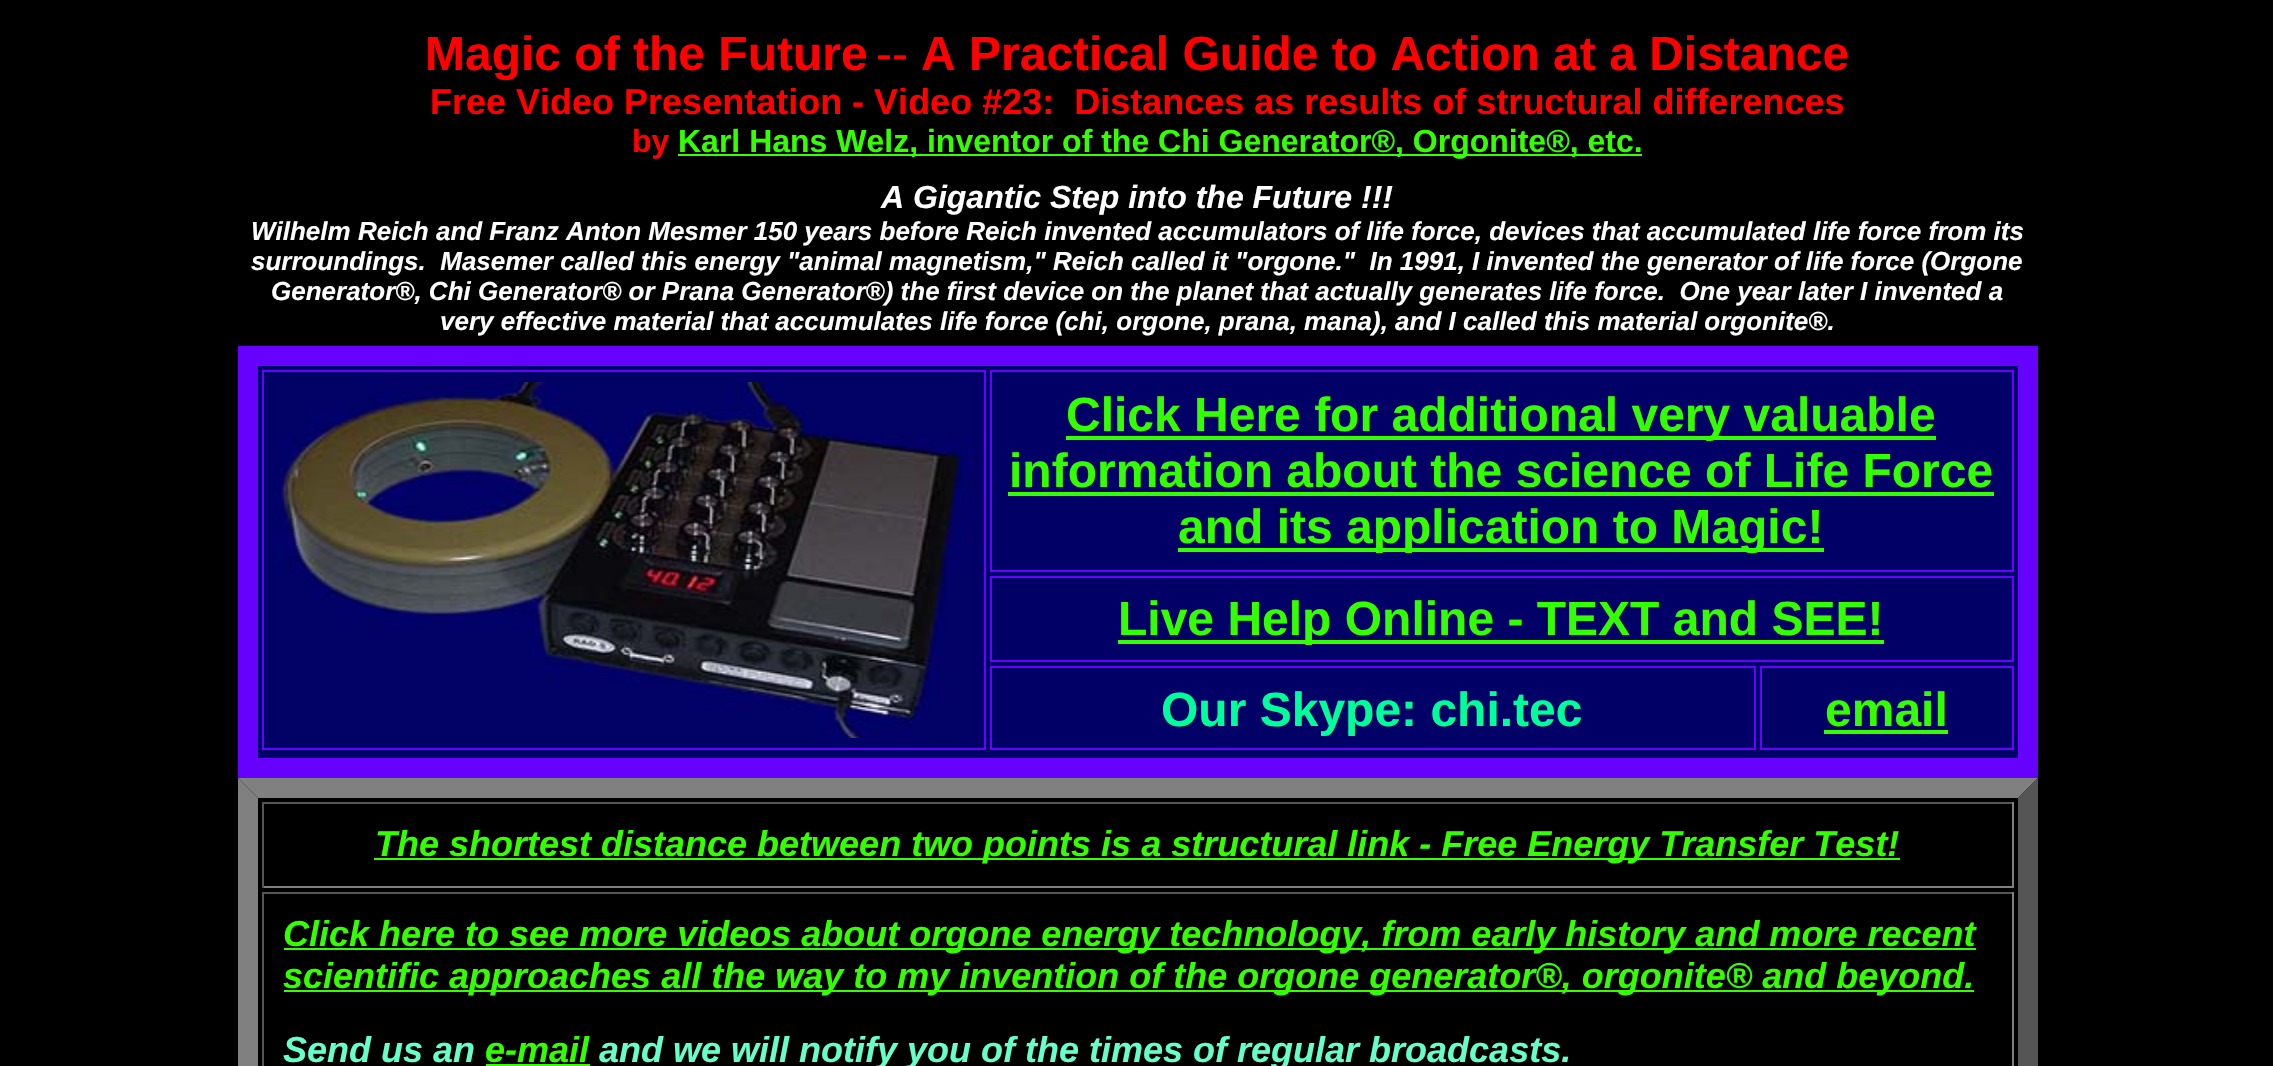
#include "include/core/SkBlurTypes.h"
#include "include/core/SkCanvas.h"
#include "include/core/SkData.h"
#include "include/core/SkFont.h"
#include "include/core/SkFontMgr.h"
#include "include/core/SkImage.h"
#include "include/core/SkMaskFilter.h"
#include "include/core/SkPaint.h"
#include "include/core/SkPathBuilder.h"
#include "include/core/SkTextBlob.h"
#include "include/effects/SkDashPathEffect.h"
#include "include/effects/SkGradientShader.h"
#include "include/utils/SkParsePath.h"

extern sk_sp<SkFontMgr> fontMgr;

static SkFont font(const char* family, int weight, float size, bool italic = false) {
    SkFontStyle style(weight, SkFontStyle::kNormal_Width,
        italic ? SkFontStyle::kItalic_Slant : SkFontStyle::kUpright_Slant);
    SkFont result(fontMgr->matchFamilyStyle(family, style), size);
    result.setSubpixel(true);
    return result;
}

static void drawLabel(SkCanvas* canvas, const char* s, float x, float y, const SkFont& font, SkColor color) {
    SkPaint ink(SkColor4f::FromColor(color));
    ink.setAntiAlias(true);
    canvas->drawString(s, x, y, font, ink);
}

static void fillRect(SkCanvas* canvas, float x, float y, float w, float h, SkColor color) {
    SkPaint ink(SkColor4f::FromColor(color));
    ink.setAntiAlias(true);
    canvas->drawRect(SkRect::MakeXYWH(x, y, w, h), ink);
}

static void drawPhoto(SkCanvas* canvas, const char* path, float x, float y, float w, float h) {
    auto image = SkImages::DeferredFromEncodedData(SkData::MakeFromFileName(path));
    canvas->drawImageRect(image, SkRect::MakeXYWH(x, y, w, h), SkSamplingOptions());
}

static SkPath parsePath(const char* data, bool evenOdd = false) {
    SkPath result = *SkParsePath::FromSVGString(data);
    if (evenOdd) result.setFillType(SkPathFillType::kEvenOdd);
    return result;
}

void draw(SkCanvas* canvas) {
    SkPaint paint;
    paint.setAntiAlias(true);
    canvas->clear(0xFF000000);
    SkFont font1 = font("Liberation Sans", 700, 48);
    drawLabel(canvas, "Magic of the Future", 425, 70, font1, 0xFFFF0000);
    SkFont font2 = font("Liberation Sans", 400, 48);
    drawLabel(canvas, "--", 876, 70, font2, 0xFFFF0000);
    drawLabel(canvas, "A Practical Guide to Action at a Distance", 921, 70, font1, 0xFFFF0000);
    SkFont font3 = font("Liberation Sans", 700, 36);
    drawLabel(canvas, "Free Video Presentation - Video #23:  Distances as results of structural differences", 430, 114, font3, 0xFFFF0000);
    SkFont font4 = font("Liberation Sans", 700, 32);
    drawLabel(canvas, "by", 632, 152, font4, 0xFFFF0000);
    fillRect(canvas, 678, 154, 964, 2, 0xFF33FF00);
    drawLabel(canvas, "Karl Hans Welz, inventor of the Chi Generator®, Orgonite®, etc.", 678, 152, font4, 0xFF33FF00);
    SkFont font5 = font("Liberation Sans", 700, 32, true);
    drawLabel(canvas, "A Gigantic Step into the Future !!!", 881, 208, font5, 0xFFFFFFFF);
    SkFont font6 = font("Liberation Sans", 700, 26, true);
    drawLabel(canvas, "Wilhelm Reich and Franz Anton Mesmer 150 years before Reich invented accumulators of life force, devices that accumulated life force from its", 251, 240, font6, 0xFFFFFFFF);
    drawLabel(canvas, "surroundings.  Masemer called this energy \"animal magnetism,\" Reich called it \"orgone.\"  In 1991, I invented the generator of life force (Orgone", 251, 270, font6, 0xFFFFFFFF);
    drawLabel(canvas, "Generator®, Chi Generator® or Prana Generator®) the first device on the planet that actually generates life force.  One year later I invented a", 271, 300, font6, 0xFFFFFFFF);
    drawLabel(canvas, "very effective material that accumulates life force (chi, orgone, prana, mana), and I called this material orgonite®.", 440, 330, font6, 0xFFFFFFFF);
    paint.setColor(0xFF000066);
    canvas->drawRect(SkRect::MakeXYWH(248, 356, 1780, 412), paint);
    paint.setStroke(true);
    paint.setStrokeWidth(20);
    paint.setColor(0xFF6600FF);
    canvas->drawRect(SkRect::MakeXYWH(248, 356, 1780, 412), paint);
    paint.setStrokeWidth(2);
    canvas->drawRect(SkRect::MakeXYWH(263, 371, 722, 378), paint);
    drawPhoto(canvas, "assets/img1.png", 274, 382, 700, 356);
    canvas->drawRect(SkRect::MakeXYWH(991, 371, 1022, 200), paint);
    fillRect(canvas, 1066, 436, 870, 4, 0xFF33FF00);
    drawLabel(canvas, "Click Here for additional very valuable", 1066, 431, font1, 0xFF33FF00);
    drawLabel(canvas, "information about the science of Life Force", 1009, 487, font1, 0xFF33FF00);
    fillRect(canvas, 1008, 492, 986, 4, 0xFF33FF00);
    fillRect(canvas, 1178, 548, 646, 4, 0xFF33FF00);
    drawLabel(canvas, "and its application to Magic!", 1178, 543, font1, 0xFF33FF00);
    canvas->drawRect(SkRect::MakeXYWH(991, 577, 1022, 84), paint);
    fillRect(canvas, 1118, 640, 766, 4, 0xFF33FF00);
    drawLabel(canvas, "Live Help Online - TEXT and SEE!", 1118, 635, font1, 0xFF33FF00);
    canvas->drawRect(SkRect::MakeXYWH(991, 667, 764, 82), paint);
    drawLabel(canvas, "Our Skype: chi.tec", 1161, 726, font1, 0xFF00FF99);
    canvas->drawRect(SkRect::MakeXYWH(1761, 667, 252, 82), paint);
    drawLabel(canvas, "email", 1825, 726, font1, 0xFF33FF00);
    fillRect(canvas, 1824, 730, 124, 4, 0xFF33FF00);
    paint.setStroke(false);
    paint.setColor(0xFF808080);
    canvas->drawPath(parsePath("M238 778H2038L2018 798H258Z"), paint);
    paint.setColor(0xFF555555);
    canvas->drawPath(parsePath("M2038 778V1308L2018 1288V798Z"), paint);
    paint.setColor(0xFF808080);
    canvas->drawPath(parsePath("M238 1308V778L258 798V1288Z"), paint);
    fillRect(canvas, 262, 802, 1752, 2, 0xFF555555);
    fillRect(canvas, 2012, 802, 2, 86, 0xFF808080);
    fillRect(canvas, 262, 886, 1752, 2, 0xFF808080);
    fillRect(canvas, 262, 802, 2, 86, 0xFF555555);
    fillRect(canvas, 374, 858, 1526, 2, 0xFF33FF00);
    SkFont font7 = font("Liberation Sans", 700, 36, true);
    drawLabel(canvas, "The shortest distance between two points is a structural link - Free Energy Transfer Test!", 375, 856, font7, 0xFF33FF00);
    fillRect(canvas, 262, 892, 1752, 2, 0xFF555555);
    fillRect(canvas, 2012, 892, 2, 174, 0xFF808080);
    fillRect(canvas, 262, 892, 2, 174, 0xFF555555);
    fillRect(canvas, 284, 948, 1692, 2, 0xFF33FF00);
    drawLabel(canvas, "Click here to see more videos about orgone energy technology, from early history and more recent", 283, 946, font7, 0xFF33FF00);
    fillRect(canvas, 284, 990, 1690, 2, 0xFF33FF00);
    drawLabel(canvas, "scientific approaches all the way to my invention of the orgone generator®, orgonite® and beyond.", 283, 988, font7, 0xFF33FF00);
    drawLabel(canvas, "Send us an", 283, 1062, font7, 0xFF66FFCC);
    drawLabel(canvas, "e-mail", 485, 1062, font7, 0xFF33FF00);
    fillRect(canvas, 486, 1064, 104, 2, 0xFF33FF00);
    drawLabel(canvas, "and we will notify you of the times of regular broadcasts.", 599, 1062, font7, 0xFF66FFCC);
}
